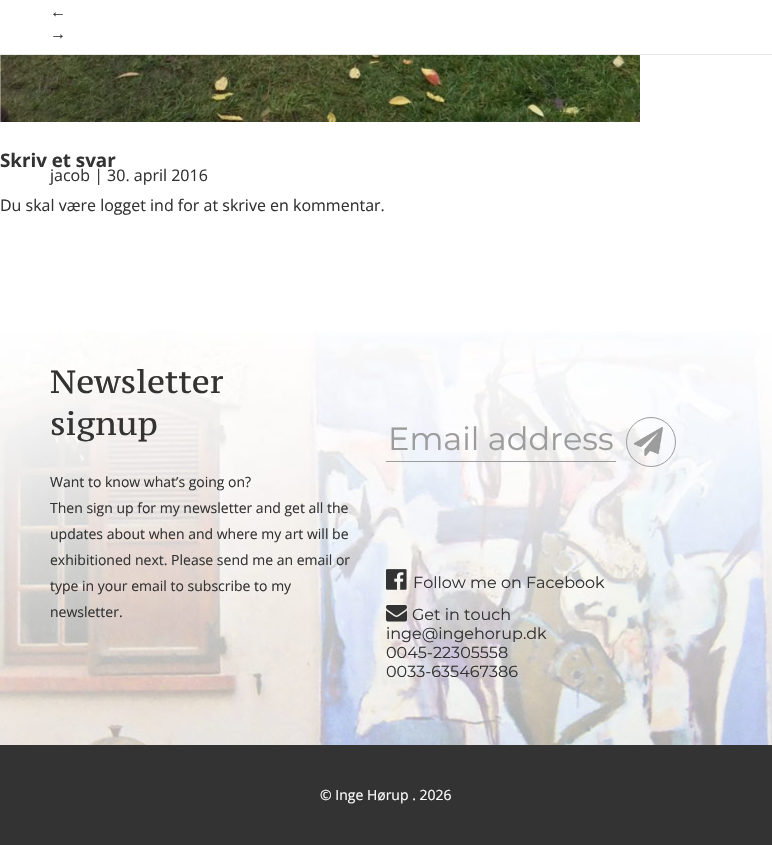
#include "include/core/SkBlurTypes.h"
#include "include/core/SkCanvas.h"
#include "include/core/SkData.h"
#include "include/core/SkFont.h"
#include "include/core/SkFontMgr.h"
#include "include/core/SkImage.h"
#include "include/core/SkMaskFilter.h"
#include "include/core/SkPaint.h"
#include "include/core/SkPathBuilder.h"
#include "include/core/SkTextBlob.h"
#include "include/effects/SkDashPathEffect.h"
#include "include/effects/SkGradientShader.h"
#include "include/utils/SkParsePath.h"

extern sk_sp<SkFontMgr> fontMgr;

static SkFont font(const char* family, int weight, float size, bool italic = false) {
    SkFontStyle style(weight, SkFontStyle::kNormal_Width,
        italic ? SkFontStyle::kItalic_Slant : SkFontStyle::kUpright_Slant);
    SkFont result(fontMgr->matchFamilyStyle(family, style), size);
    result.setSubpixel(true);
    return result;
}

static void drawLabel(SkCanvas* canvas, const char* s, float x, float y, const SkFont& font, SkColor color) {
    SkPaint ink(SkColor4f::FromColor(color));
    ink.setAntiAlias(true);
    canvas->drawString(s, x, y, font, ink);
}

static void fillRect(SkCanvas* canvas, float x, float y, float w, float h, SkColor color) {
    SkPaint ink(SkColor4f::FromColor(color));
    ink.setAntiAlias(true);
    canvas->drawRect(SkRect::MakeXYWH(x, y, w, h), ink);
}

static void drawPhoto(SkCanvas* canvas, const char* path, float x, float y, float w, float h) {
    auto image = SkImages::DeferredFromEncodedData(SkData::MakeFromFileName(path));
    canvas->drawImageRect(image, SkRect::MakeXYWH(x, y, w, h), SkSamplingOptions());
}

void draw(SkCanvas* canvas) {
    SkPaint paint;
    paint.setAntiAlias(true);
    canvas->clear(0xFFFFFFFF);
    fillRect(canvas, 0, 54, 772, 1, 0xFFE8E8E8);
    SkFont font1 = font("Liberation Sans", 400, 16);
    drawLabel(canvas, "←", 50, 17, font1, 0xFF333333);
    drawLabel(canvas, "→", 50, 39, font1, 0xFF333333);
    drawPhoto(canvas, "assets/img1.png", 0, 55, 640, 67);
    SkFont font2 = font("Open Sans", 700, 18.75f);
    drawLabel(canvas, "Skriv et svar", 0, 167, font2, 0xFF333333);
    SkFont font3 = font("Open Sans", 400, 16);
    drawLabel(canvas, "Du skal være logget ind for at skrive en kommentar.", 0, 211, font3, 0xFF333333);
    drawLabel(canvas, "jacob | 30. april 2016", 50, 181, font3, 0xFF333333);
    drawPhoto(canvas, "assets/img2.png", 0, 331, 772, 414);
    SkFont font4 = font("PT Serif Caption", 400, 32);
    drawLabel(canvas, "Newsletter", 50, 393, font4, 0xFF333333);
    drawLabel(canvas, "signup", 50, 435, font4, 0xFF333333);
    SkFont font5 = font("Open Sans", 400, 14);
    drawLabel(canvas, "Want to know what’s going on?", 50, 487, font5, 0xFF333333);
    drawLabel(canvas, "Then sign up for my newsletter and get all the", 50, 513, font5, 0xFF333333);
    drawLabel(canvas, "updates about when and where my art will be", 50, 539, font5, 0xFF333333);
    drawLabel(canvas, "exhibitioned next. Please send me an email or", 50, 565, font5, 0xFF333333);
    drawLabel(canvas, "type in your email to subscribe to my", 50, 591, font5, 0xFF333333);
    drawLabel(canvas, "newsletter.", 50, 617, font5, 0xFF333333);
    fillRect(canvas, 386, 461, 230, 1, 0xFF9C9C9C);
    SkFont font6 = font("Montserrat", 400, 32);
    drawLabel(canvas, "Email address", 388, 450, font6, 0xFF9C9C9C);
    drawPhoto(canvas, "assets/img3.png", 633, 427, 30, 29);
    paint.setStroke(true);
    paint.setStrokeWidth(1);
    paint.setColor(0xFF9C9C9C);
    canvas->drawCircle(651, 442, 24.5f, paint);
    drawPhoto(canvas, "assets/img4.png", 386, 569, 21, 21);
    SkFont font7 = font("Montserrat", 400, 16);
    drawLabel(canvas, "Follow me on Facebook", 413, 588, font7, 0xFF333333);
    drawPhoto(canvas, "assets/img5.png", 386, 605, 21, 17);
    drawLabel(canvas, "Get in touch", 412, 620, font7, 0xFF333333);
    drawLabel(canvas, "inge@ingehorup.dk", 386, 639, font7, 0xFF333333);
    drawLabel(canvas, "0045-22305558", 386, 658, font7, 0xFF333333);
    drawLabel(canvas, "0033-635467386", 386, 677, font7, 0xFF333333);
    fillRect(canvas, 0, 745, 772, 100, 0xFF333333);
    drawLabel(canvas, "© Inge Hørup . 2026", 320, 800, font5, 0xFFFFFFFF);
}
